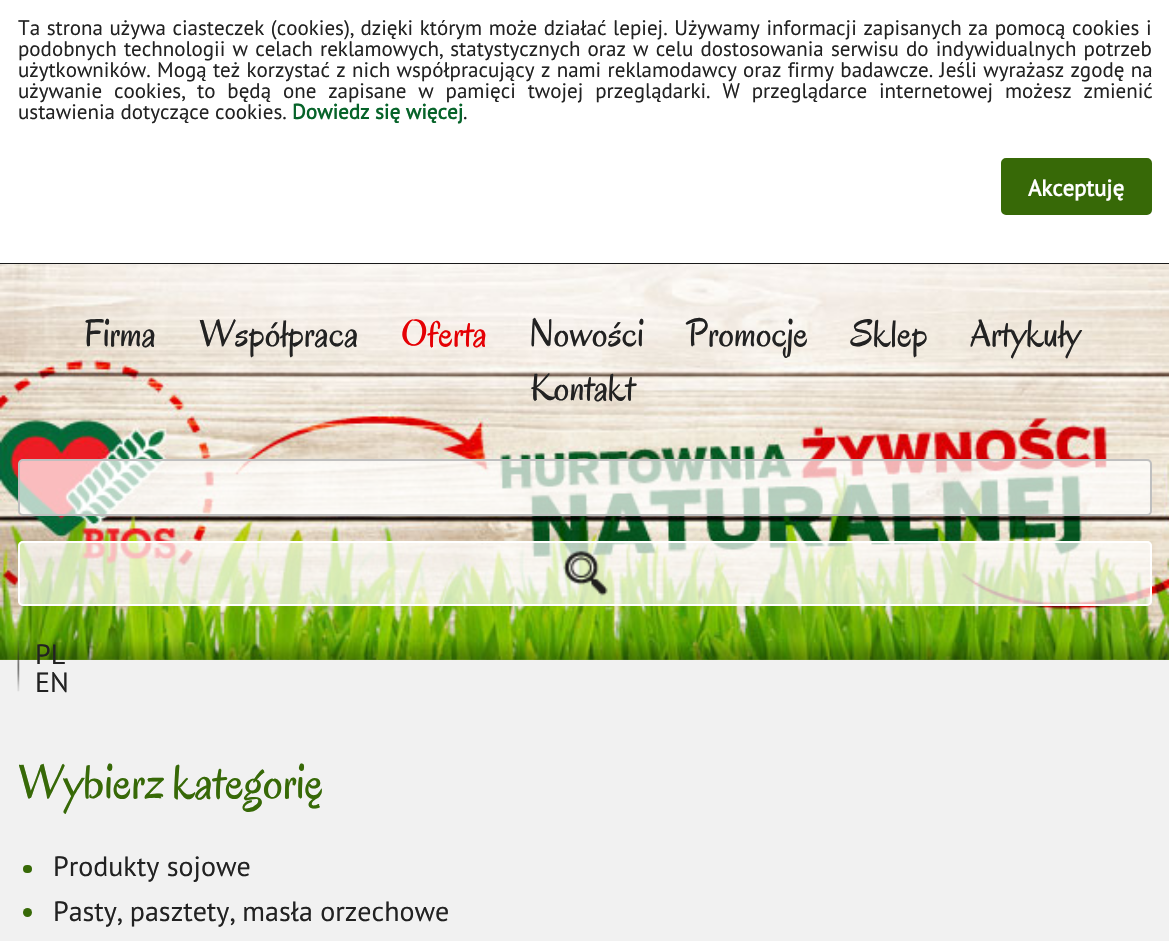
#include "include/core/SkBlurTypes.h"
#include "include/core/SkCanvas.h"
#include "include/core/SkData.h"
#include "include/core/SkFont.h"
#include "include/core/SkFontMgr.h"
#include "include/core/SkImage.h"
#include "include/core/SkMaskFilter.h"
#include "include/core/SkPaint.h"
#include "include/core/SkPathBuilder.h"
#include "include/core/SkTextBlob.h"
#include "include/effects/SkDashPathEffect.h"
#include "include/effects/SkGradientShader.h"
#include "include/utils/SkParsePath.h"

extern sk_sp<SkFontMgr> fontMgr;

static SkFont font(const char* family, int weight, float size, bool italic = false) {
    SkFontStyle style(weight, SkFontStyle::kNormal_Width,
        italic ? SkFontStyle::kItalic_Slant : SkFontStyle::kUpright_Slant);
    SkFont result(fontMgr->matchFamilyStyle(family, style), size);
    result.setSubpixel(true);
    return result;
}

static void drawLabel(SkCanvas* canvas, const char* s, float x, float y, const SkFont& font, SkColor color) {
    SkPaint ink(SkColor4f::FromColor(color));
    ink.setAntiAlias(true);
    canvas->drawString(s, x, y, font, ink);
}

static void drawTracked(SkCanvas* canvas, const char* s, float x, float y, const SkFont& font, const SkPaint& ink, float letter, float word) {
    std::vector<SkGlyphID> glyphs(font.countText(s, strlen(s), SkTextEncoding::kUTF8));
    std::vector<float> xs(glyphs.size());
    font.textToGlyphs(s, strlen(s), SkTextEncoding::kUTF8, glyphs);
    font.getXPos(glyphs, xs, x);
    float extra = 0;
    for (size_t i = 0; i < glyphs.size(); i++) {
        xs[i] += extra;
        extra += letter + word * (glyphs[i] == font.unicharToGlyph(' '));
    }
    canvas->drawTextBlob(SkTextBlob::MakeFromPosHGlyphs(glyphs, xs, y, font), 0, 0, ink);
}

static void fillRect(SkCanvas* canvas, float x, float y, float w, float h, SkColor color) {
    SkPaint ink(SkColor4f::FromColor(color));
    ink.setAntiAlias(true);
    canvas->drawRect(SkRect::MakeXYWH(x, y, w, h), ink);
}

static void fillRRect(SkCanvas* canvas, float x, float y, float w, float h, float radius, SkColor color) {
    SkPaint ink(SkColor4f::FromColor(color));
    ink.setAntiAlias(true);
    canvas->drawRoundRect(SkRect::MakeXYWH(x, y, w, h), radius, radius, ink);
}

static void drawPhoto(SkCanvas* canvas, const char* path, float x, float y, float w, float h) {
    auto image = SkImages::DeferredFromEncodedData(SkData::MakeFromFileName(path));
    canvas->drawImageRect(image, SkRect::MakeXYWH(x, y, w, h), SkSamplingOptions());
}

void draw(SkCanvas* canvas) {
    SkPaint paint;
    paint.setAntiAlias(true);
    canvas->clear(0xFFFFFFFF);
    fillRect(canvas, 0, 263, 1169, 1, 0xFF1A1A1A);
    SkFont font1 = font("PT Sans", 400, 21);
    paint.setColor(0xFF222222);
    drawTracked(canvas, "Ta strona używa ciasteczek (cookies), dzięki którym może działać lepiej. Używamy informacji zapisanych za pomocą cookies i", 18, 35, font1, paint, 0, 1);
    drawTracked(canvas, "podobnych technologii w celach reklamowych, statystycznych oraz w celu dostosowania serwisu do indywidualnych potrzeb", 18, 56, font1, paint, 0, 1.6f);
    drawTracked(canvas, "użytkowników. Mogą też korzystać z nich współpracujący z nami reklamodawcy oraz firmy badawcze. Jeśli wyrażasz zgodę na", 18, 77, font1, paint, 0, 0.75f);
    drawTracked(canvas, "używanie cookies, to będą one zapisane w pamięci twojej przeglądarki. W przeglądarce internetowej możesz zmienić", 18, 98, font1, paint, 0, 6.25f);
    drawLabel(canvas, "ustawienia dotyczące cookies.", 18, 119, font1, 0xFF222222);
    SkFont font2 = font("PT Sans", 700, 21);
    drawLabel(canvas, "Dowiedz się więcej", 292, 119, font2, 0xFF066329);
    drawLabel(canvas, ".", 463, 119, font1, 0xFF222222);
    paint.setColor(0xFF376907);
    canvas->drawRoundRect(SkRect::MakeXYWH(1002, 159, 149, 55), 4, 4, paint);
    paint.setStroke(true);
    paint.setStrokeWidth(2);
    canvas->drawRoundRect(SkRect::MakeXYWH(1002, 159, 149, 55), 4, 4, paint);
    SkFont font3 = font("PT Sans", 700, 22.75f);
    drawLabel(canvas, "Akceptuję", 1028, 196, font3, 0xFFFFFFFF);
    fillRect(canvas, 0, 264, 1169, 677, 0xFFF1F1F1);
    drawPhoto(canvas, "assets/img1.png", 0, 264, 1169, 396);
    drawPhoto(canvas, "assets/img2.png", 0, 264, 1169, 396);
    SkFont font4 = font("Oregano", 400, 38.5f);
    drawLabel(canvas, "Firma", 84, 346, font4, 0xFF222222);
    drawLabel(canvas, "Współpraca", 199, 346, font4, 0xFF222222);
    drawLabel(canvas, "Oferta", 401, 346, font4, 0xFFE50004);
    drawLabel(canvas, "Nowości", 529, 346, font4, 0xFF222222);
    drawLabel(canvas, "Promocje", 686, 346, font4, 0xFF222222);
    drawLabel(canvas, "Sklep", 851, 346, font4, 0xFF222222);
    drawLabel(canvas, "Artykuły", 970, 346, font4, 0xFF222222);
    drawLabel(canvas, "Kontakt", 530, 400, font4, 0xFF222222);
    paint.setStroke(false);
    paint.setColor(0xB3FFFFFF);
    canvas->drawRoundRect(SkRect::MakeXYWH(19, 460, 1132, 55), 4, 4, paint);
    paint.setStroke(true);
    paint.setColor(0xFFBFBFBF);
    canvas->drawRoundRect(SkRect::MakeXYWH(19, 460, 1132, 55), 4, 4, paint);
    fillRRect(canvas, 18, 541, 1134, 65, 5, 0xB3FFFFFF);
    drawPhoto(canvas, "assets/img3.png", 562, 548, 46, 48);
    paint.setColor(0xFFFFFFFF);
    canvas->drawRoundRect(SkRect::MakeXYWH(19, 542, 1132, 63), 4, 4, paint);
    drawPhoto(canvas, "assets/img4.png", 17, 640, 3, 52);
    SkFont font5 = font("PT Sans", 400, 28);
    drawLabel(canvas, "PL", 35, 664, font5, 0xFF222222);
    drawLabel(canvas, "EN", 35, 692, font5, 0xFF222222);
    SkFont font6 = font("Oregano", 400, 49);
    drawLabel(canvas, "Wybierz kategorię", 18, 798, font6, 0xFF376907);
    fillRRect(canvas, 23, 865, 9, 8, 4, 0xFF376907);
    drawLabel(canvas, "Produkty sojowe", 53, 876, font5, 0xFF222222);
    paint.setStroke(false);
    paint.setColor(0xFF376907);
    canvas->drawCircle(27.5f, 912.5f, 4.5f, paint);
    drawLabel(canvas, "Pasty, pasztety, masła orzechowe", 53, 921, font5, 0xFF222222);
}
